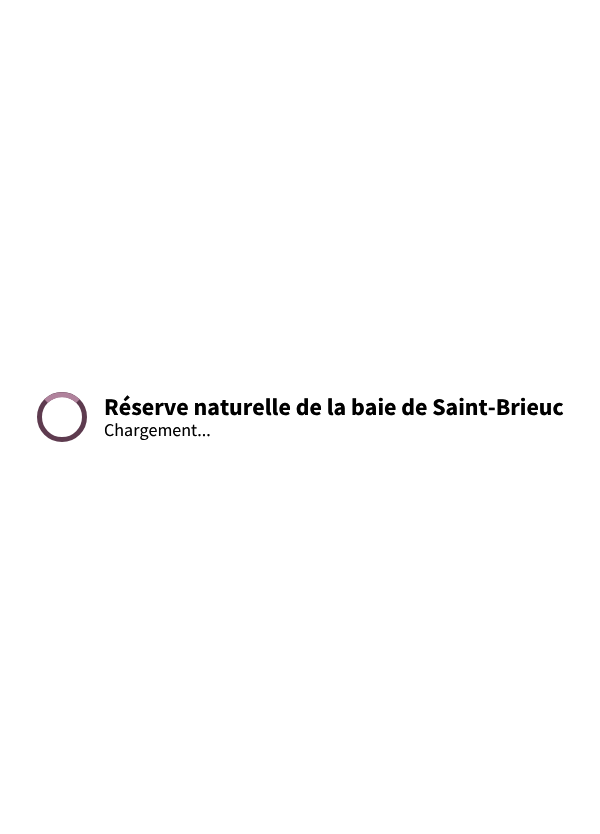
#include "include/core/SkBlurTypes.h"
#include "include/core/SkCanvas.h"
#include "include/core/SkData.h"
#include "include/core/SkFont.h"
#include "include/core/SkFontMgr.h"
#include "include/core/SkImage.h"
#include "include/core/SkMaskFilter.h"
#include "include/core/SkPaint.h"
#include "include/core/SkPathBuilder.h"
#include "include/core/SkTextBlob.h"
#include "include/effects/SkDashPathEffect.h"
#include "include/effects/SkGradientShader.h"
#include "include/utils/SkParsePath.h"

extern sk_sp<SkFontMgr> fontMgr;

static SkFont font(const char* family, int weight, float size, bool italic = false) {
    SkFontStyle style(weight, SkFontStyle::kNormal_Width,
        italic ? SkFontStyle::kItalic_Slant : SkFontStyle::kUpright_Slant);
    SkFont result(fontMgr->matchFamilyStyle(family, style), size);
    result.setSubpixel(true);
    return result;
}

static void drawLabel(SkCanvas* canvas, const char* s, float x, float y, const SkFont& font, SkColor color) {
    SkPaint ink(SkColor4f::FromColor(color));
    ink.setAntiAlias(true);
    canvas->drawString(s, x, y, font, ink);
}

static SkPath parsePath(const char* data, bool evenOdd = false) {
    SkPath result = *SkParsePath::FromSVGString(data);
    if (evenOdd) result.setFillType(SkPathFillType::kEvenOdd);
    return result;
}

void draw(SkCanvas* canvas) {
    SkPaint paint;
    paint.setAntiAlias(true);
    canvas->clear(0xFFFFFFFF);
    paint.setStroke(true);
    paint.setStrokeWidth(5);
    paint.setColor(0xFF5E3B4F);
    canvas->drawCircle(62, 417, 22.5f, paint);
    paint.setColor(0xFFB0829C);
    canvas->drawPath(parsePath("M46 401C55 392.5 69 392.5 78 401"), paint);
    SkFont font1 = font("Source Sans Pro", 700, 24);
    drawLabel(canvas, "Réserve naturelle de la baie de Saint-Brieuc", 104, 415, font1, 0xFF000000);
    SkFont font2 = font("Source Sans Pro", 400, 18);
    drawLabel(canvas, "Chargement...", 104, 436, font2, 0xFF000000);
}
